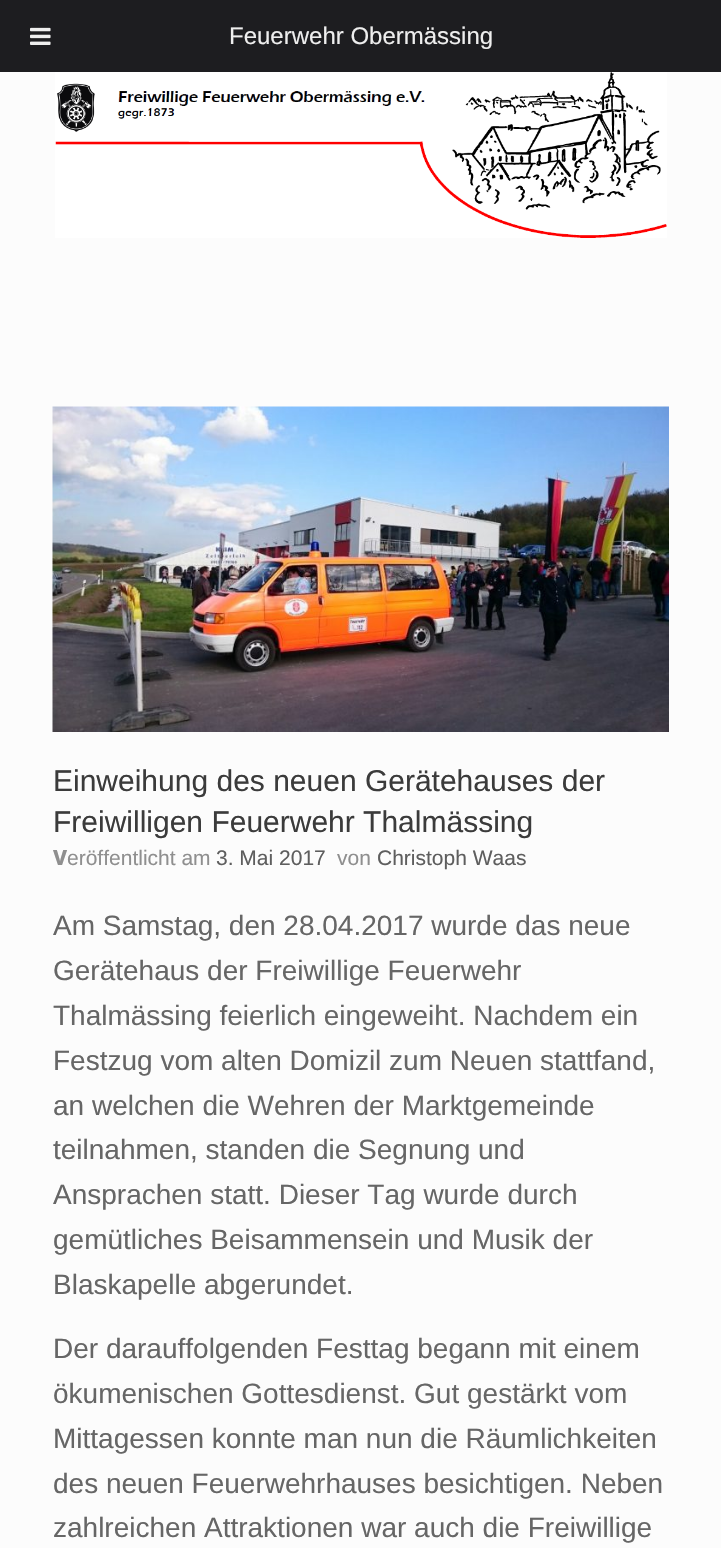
#include "include/core/SkBlurTypes.h"
#include "include/core/SkCanvas.h"
#include "include/core/SkData.h"
#include "include/core/SkFont.h"
#include "include/core/SkFontMgr.h"
#include "include/core/SkImage.h"
#include "include/core/SkMaskFilter.h"
#include "include/core/SkPaint.h"
#include "include/core/SkPathBuilder.h"
#include "include/core/SkTextBlob.h"
#include "include/effects/SkDashPathEffect.h"
#include "include/effects/SkGradientShader.h"
#include "include/utils/SkParsePath.h"

extern sk_sp<SkFontMgr> fontMgr;

static SkFont font(const char* family, int weight, float size, bool italic = false) {
    SkFontStyle style(weight, SkFontStyle::kNormal_Width,
        italic ? SkFontStyle::kItalic_Slant : SkFontStyle::kUpright_Slant);
    SkFont result(fontMgr->matchFamilyStyle(family, style), size);
    result.setSubpixel(true);
    return result;
}

static void drawLabel(SkCanvas* canvas, const char* s, float x, float y, const SkFont& font, SkColor color) {
    SkPaint ink(SkColor4f::FromColor(color));
    ink.setAntiAlias(true);
    canvas->drawString(s, x, y, font, ink);
}

static void fillRect(SkCanvas* canvas, float x, float y, float w, float h, SkColor color) {
    SkPaint ink(SkColor4f::FromColor(color));
    ink.setAntiAlias(true);
    canvas->drawRect(SkRect::MakeXYWH(x, y, w, h), ink);
}

static void drawPhoto(SkCanvas* canvas, const char* path, float x, float y, float w, float h) {
    auto image = SkImages::DeferredFromEncodedData(SkData::MakeFromFileName(path));
    canvas->drawImageRect(image, SkRect::MakeXYWH(x, y, w, h), SkSamplingOptions());
}

void draw(SkCanvas* canvas) {
    SkPaint paint;
    paint.setAntiAlias(true);
    canvas->clear(0xFFFCFCFC);
    fillRect(canvas, 0, 0, 721, 72, 0xFF1D1D20);
    drawPhoto(canvas, "assets/img1.png", 30, 27, 21, 18);
    SkFont font1 = font("Liberation Sans", 400, 24);
    drawLabel(canvas, "Feuerwehr Obermässing", 229, 44, font1, 0xFFEEEEEE);
    drawPhoto(canvas, "assets/img2.png", 55, 72, 612, 166);
    drawPhoto(canvas, "assets/img3.png", 52, 406, 617, 326);
    SkFont font2 = font("Liberation Sans", 400, 30);
    drawLabel(canvas, "Einweihung des neuen Gerätehauses der", 53, 791, font2, 0xFF3B3B3B);
    drawLabel(canvas, "Freiwilligen Feuerwehr Thalmässing", 53, 832, font2, 0xFF3B3B3B);
    SkFont font3 = font("Noto Sans", 800, 21);
    drawLabel(canvas, "V", 53, 865, font3, 0xFF8F8F8F);
    SkFont font4 = font("Liberation Sans", 400, 21);
    drawLabel(canvas, "eröffentlicht am", 67, 865, font4, 0xFF8F8F8F);
    drawLabel(canvas, "3. Mai 2017", 216, 865, font4, 0xFF5E5E5E);
    drawLabel(canvas, "von", 337, 865, font4, 0xFF8F8F8F);
    drawLabel(canvas, "Christoph Waas", 377, 865, font4, 0xFF5E5E5E);
    SkFont font5 = font("Liberation Sans", 400, 28);
    drawLabel(canvas, "Am Samstag, den 28.04.2017 wurde das neue", 53, 935, font5, 0xFF666666);
    drawLabel(canvas, "Gerätehaus der Freiwillige Feuerwehr", 53, 980, font5, 0xFF666666);
    drawLabel(canvas, "Thalmässing feierlich eingeweiht. Nachdem ein", 53, 1025, font5, 0xFF666666);
    drawLabel(canvas, "Festzug vom alten Domizil zum Neuen stattfand,", 53, 1070, font5, 0xFF666666);
    drawLabel(canvas, "an welchen die Wehren der Marktgemeinde", 53, 1115, font5, 0xFF666666);
    drawLabel(canvas, "teilnahmen, standen die Segnung und", 53, 1159, font5, 0xFF666666);
    drawLabel(canvas, "Ansprachen statt. Dieser Tag wurde durch", 53, 1204, font5, 0xFF666666);
    drawLabel(canvas, "gemütliches Beisammensein und Musik der", 53, 1249, font5, 0xFF666666);
    drawLabel(canvas, "Blaskapelle abgerundet.", 53, 1294, font5, 0xFF666666);
    drawLabel(canvas, "Der darauffolgenden Festtag begann mit einem", 53, 1358, font5, 0xFF666666);
    drawLabel(canvas, "ökumenischen Gottesdienst. Gut gestärkt vom", 53, 1403, font5, 0xFF666666);
    drawLabel(canvas, "Mittagessen konnte man nun die Räumlichkeiten", 53, 1448, font5, 0xFF666666);
    drawLabel(canvas, "des neuen Feuerwehrhauses besichtigen. Neben", 53, 1493, font5, 0xFF666666);
    drawLabel(canvas, "zahlreichen Attraktionen war auch die Freiwillige", 53, 1537, font5, 0xFF666666);
}
